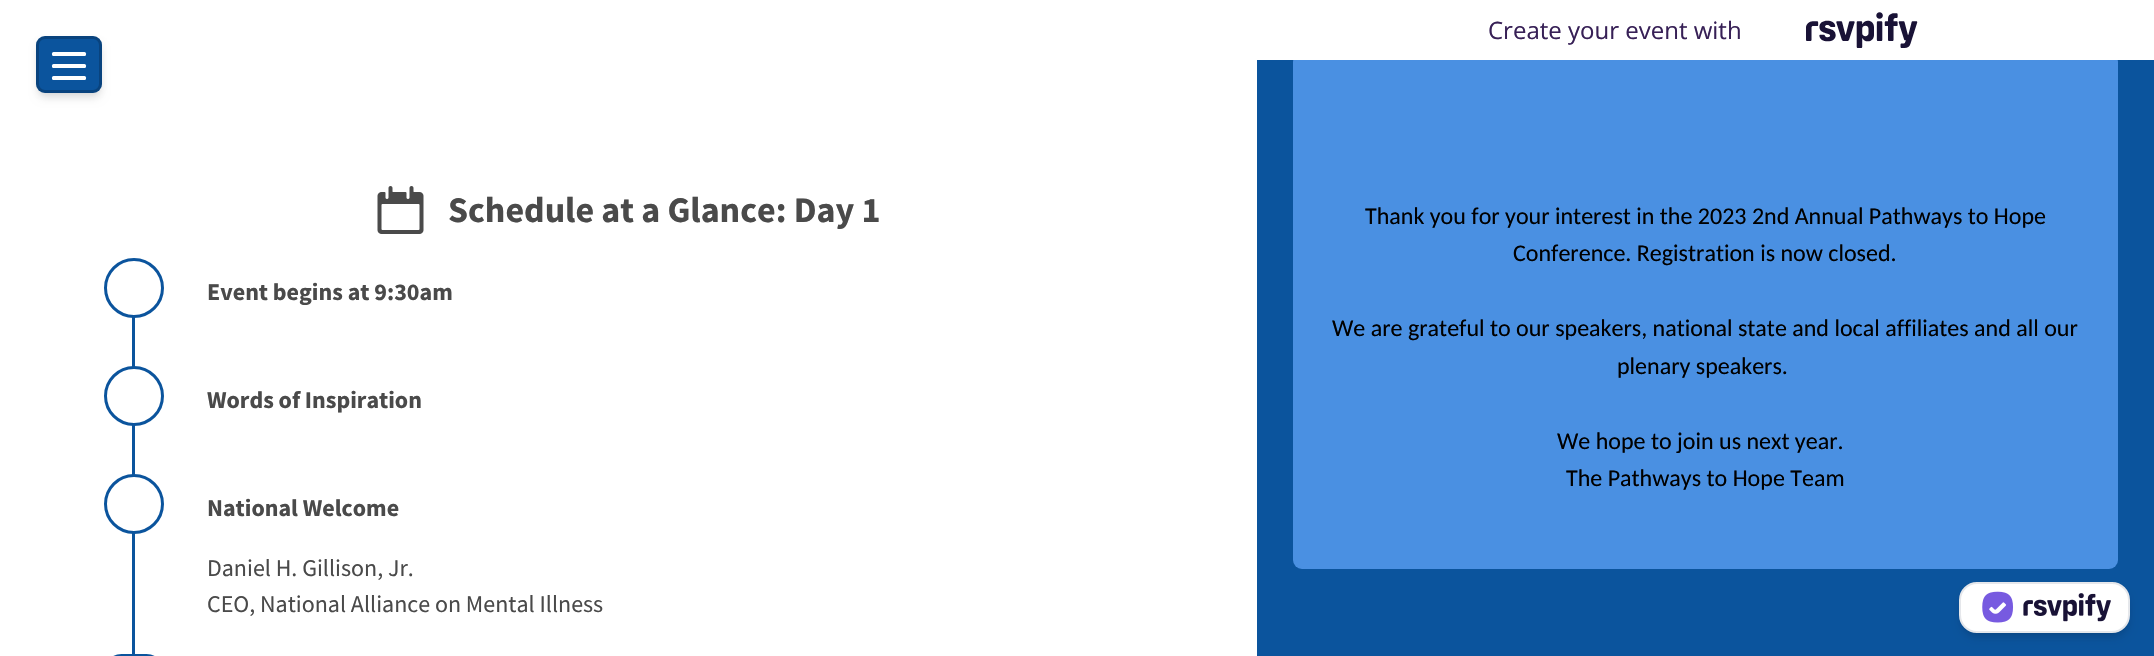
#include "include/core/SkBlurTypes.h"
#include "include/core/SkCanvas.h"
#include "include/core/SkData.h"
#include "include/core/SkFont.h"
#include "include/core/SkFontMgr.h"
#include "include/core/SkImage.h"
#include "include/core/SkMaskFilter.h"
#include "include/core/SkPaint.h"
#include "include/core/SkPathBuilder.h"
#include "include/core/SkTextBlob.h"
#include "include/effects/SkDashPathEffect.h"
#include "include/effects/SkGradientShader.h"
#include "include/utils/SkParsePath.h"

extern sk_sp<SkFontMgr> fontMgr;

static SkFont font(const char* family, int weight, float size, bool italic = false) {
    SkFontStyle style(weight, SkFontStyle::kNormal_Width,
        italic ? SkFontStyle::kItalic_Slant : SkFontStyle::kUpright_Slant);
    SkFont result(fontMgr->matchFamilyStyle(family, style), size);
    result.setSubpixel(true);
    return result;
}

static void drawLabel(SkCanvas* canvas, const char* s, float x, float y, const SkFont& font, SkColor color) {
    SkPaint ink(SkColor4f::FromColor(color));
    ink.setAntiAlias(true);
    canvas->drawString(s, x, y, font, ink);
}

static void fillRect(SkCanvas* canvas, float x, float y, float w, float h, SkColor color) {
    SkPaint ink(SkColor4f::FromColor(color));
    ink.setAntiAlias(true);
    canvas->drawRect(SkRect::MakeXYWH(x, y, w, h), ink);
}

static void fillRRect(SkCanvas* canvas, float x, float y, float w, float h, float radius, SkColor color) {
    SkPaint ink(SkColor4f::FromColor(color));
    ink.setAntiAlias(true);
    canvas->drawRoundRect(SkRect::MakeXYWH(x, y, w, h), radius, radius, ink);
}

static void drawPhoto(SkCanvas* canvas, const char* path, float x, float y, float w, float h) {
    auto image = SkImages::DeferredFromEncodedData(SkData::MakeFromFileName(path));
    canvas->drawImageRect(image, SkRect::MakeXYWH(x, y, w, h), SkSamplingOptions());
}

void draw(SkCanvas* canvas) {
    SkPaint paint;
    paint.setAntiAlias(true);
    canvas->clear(0xFFFFFFFF);
    paint.setColor(0x1A000000);
    paint.setMaskFilter(SkMaskFilter::MakeBlur(kNormal_SkBlurStyle, 3));
    canvas->drawRoundRect(SkRect::MakeXYWH(39, 42, 60, 51), 6, 6, paint);
    paint.setMaskFilter(nullptr);
    paint.setMaskFilter(SkMaskFilter::MakeBlur(kNormal_SkBlurStyle, 4.5f));
    canvas->drawRoundRect(SkRect::MakeXYWH(38, 44, 63, 54), 8, 8, paint);
    paint.setMaskFilter(nullptr);
    fillRRect(canvas, 36, 36, 66, 57, 9, 0xFF0B549D);
    paint.setStroke(true);
    paint.setStrokeWidth(3);
    paint.setColor(0x33000000);
    canvas->drawRoundRect(SkRect::MakeXYWH(37.5f, 37.5f, 63, 54), 7.5f, 7.5f, paint);
    fillRRect(canvas, 52, 52, 34, 4, 1.5f, 0xFFFFFFFF);
    fillRRect(canvas, 52, 64, 34, 4, 1.5f, 0xFFFFFFFF);
    fillRRect(canvas, 52, 76, 34, 4, 1.5f, 0xFFFFFFFF);
    drawPhoto(canvas, "assets/img1.png", 377, 186, 47, 48);
    SkFont font1 = font("Source Sans Pro", 700, 36);
    drawLabel(canvas, "Schedule at a Glance: Day 1", 448, 222, font1, 0xFF4A4A4A);
    fillRect(canvas, 132, 317, 3, 50, 0xFF0B549D);
    paint.setStroke(false);
    paint.setColor(0xFFFFFFFF);
    canvas->drawCircle(134, 288, 28.5f, paint);
    paint.setStroke(true);
    paint.setColor(0xFF0B549D);
    canvas->drawCircle(134, 288, 28.5f, paint);
    SkFont font2 = font("Source Sans Pro", 700, 24);
    drawLabel(canvas, "Event begins at 9:30am", 207, 300, font2, 0xFF4A4A4A);
    fillRect(canvas, 132, 425, 3, 50, 0xFF0B549D);
    paint.setStroke(false);
    paint.setColor(0xFFFFFFFF);
    canvas->drawCircle(134, 396, 28.5f, paint);
    paint.setStroke(true);
    paint.setColor(0xFF0B549D);
    canvas->drawCircle(134, 396, 28.5f, paint);
    drawLabel(canvas, "Words of Inspiration", 207, 408, font2, 0xFF4A4A4A);
    fillRect(canvas, 132, 533, 3, 123, 0xFF0B549D);
    paint.setStroke(false);
    paint.setColor(0xFFFFFFFF);
    canvas->drawCircle(134, 504, 28.5f, paint);
    paint.setStroke(true);
    paint.setColor(0xFF0B549D);
    canvas->drawCircle(134, 504, 28.5f, paint);
    drawLabel(canvas, "National Welcome", 207, 516, font2, 0xFF4A4A4A);
    SkFont font3 = font("Source Sans Pro", 400, 24);
    drawLabel(canvas, "Daniel H. Gillison, Jr.", 207, 576, font3, 0xFF4A4A4A);
    drawLabel(canvas, "CEO, National Alliance on Mental Illness", 207, 612, font3, 0xFF4A4A4A);
    canvas->drawRoundRect(SkRect::MakeXYWH(105.5f, 655.5f, 57, 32), 28.5f, 28.5f, paint);
    fillRect(canvas, 1257, 60, 897, 596, 0xFF0B549D);
    fillRRect(canvas, 1293, 53, 825, 516, 9, 0xFF4A90E2);
    fillRect(canvas, 1293, 53, 825, 7, 0xFFFFFFFF);
    SkFont font4 = font("Open Sans", 400, 24);
    drawLabel(canvas, "Create your event with", 1488, 39, font4, 0xFF372056);
    drawPhoto(canvas, "assets/img2.png", 1806, 12, 112, 36);
    SkFont font5 = font("Carlito", 400, 24);
    drawLabel(canvas, "Thank you for your interest in the 2023 2nd Annual Pathways to Hope", 1365, 224, font5, 0xFF000000);
    drawLabel(canvas, "Conference. Registration is now closed.", 1513, 261, font5, 0xFF000000);
    drawLabel(canvas, "We are grateful to our speakers, national state and local affiliates and all our", 1332, 336, font5, 0xFF000000);
    drawLabel(canvas, "plenary speakers.", 1617, 374, font5, 0xFF000000);
    drawLabel(canvas, "We hope to join us next year.", 1557, 449, font5, 0xFF000000);
    drawLabel(canvas, "The Pathways to Hope Team", 1566, 486, font5, 0xFF000000);
    paint.setStroke(false);
    paint.setColor(0x1A000000);
    paint.setMaskFilter(SkMaskFilter::MakeBlur(kNormal_SkBlurStyle, 3));
    canvas->drawRoundRect(SkRect::MakeXYWH(1962, 588, 165, 45), 15, 15, paint);
    paint.setMaskFilter(nullptr);
    paint.setMaskFilter(SkMaskFilter::MakeBlur(kNormal_SkBlurStyle, 4.5f));
    canvas->drawRoundRect(SkRect::MakeXYWH(1961, 590, 168, 48), 17, 17, paint);
    paint.setMaskFilter(nullptr);
    paint.setColor(0xFFFFFFFF);
    canvas->drawRoundRect(SkRect::MakeXYWH(1960, 583, 169, 49), 17, 17, paint);
    paint.setStroke(true);
    paint.setStrokeWidth(2);
    paint.setColor(0xFFE5E7EB);
    canvas->drawRoundRect(SkRect::MakeXYWH(1960, 583, 169, 49), 17, 17, paint);
    drawPhoto(canvas, "assets/img3.png", 1982, 591, 129, 32);
}
